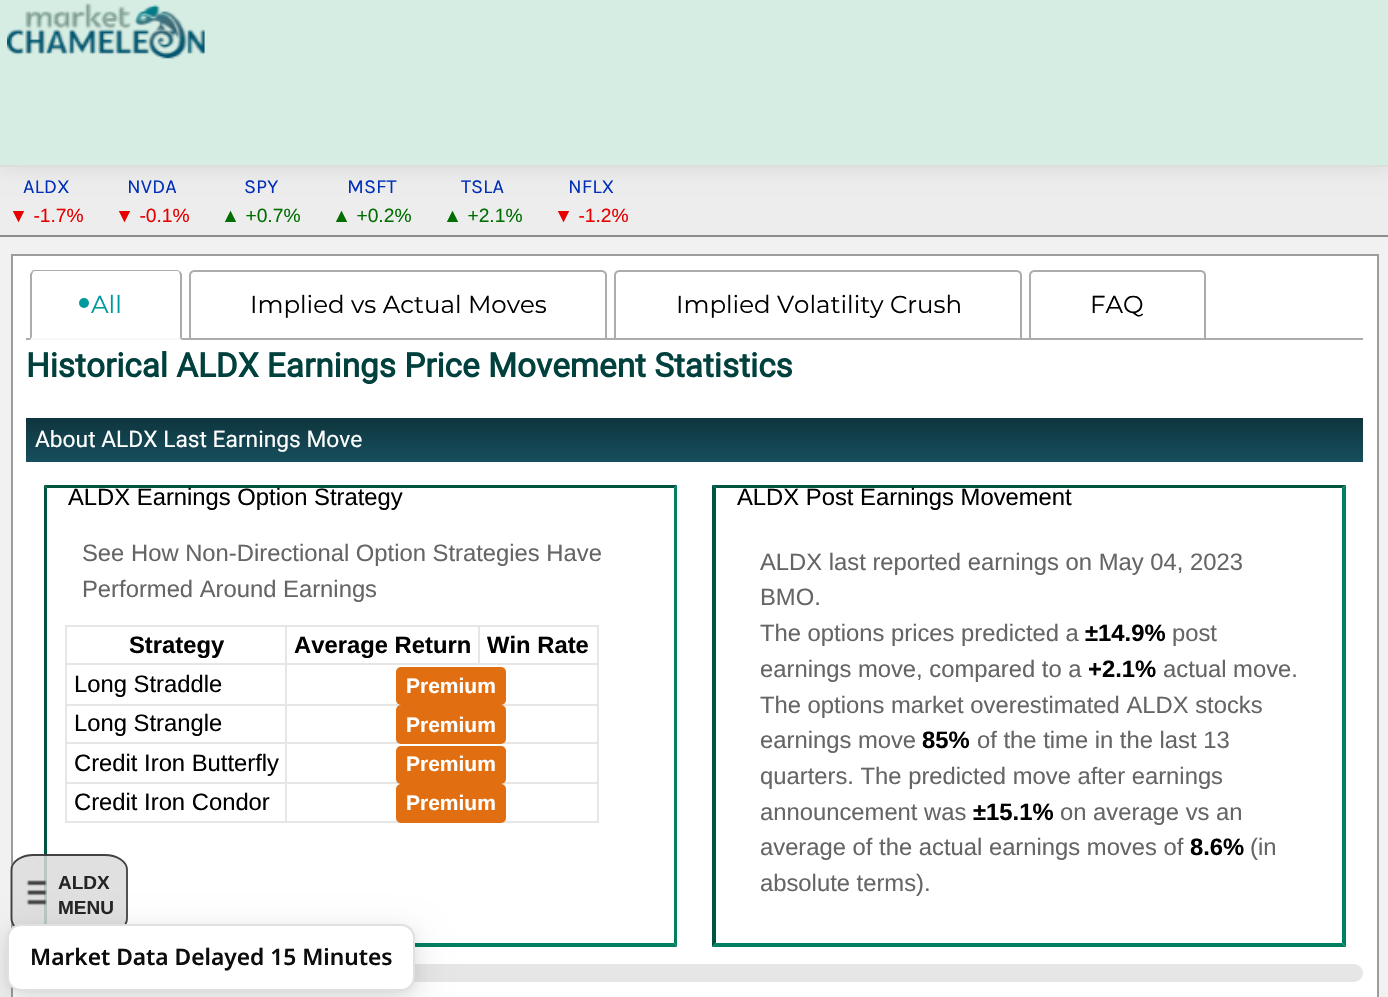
#include "include/core/SkBlurTypes.h"
#include "include/core/SkCanvas.h"
#include "include/core/SkData.h"
#include "include/core/SkFont.h"
#include "include/core/SkFontMgr.h"
#include "include/core/SkImage.h"
#include "include/core/SkMaskFilter.h"
#include "include/core/SkPaint.h"
#include "include/core/SkPathBuilder.h"
#include "include/core/SkTextBlob.h"
#include "include/effects/SkDashPathEffect.h"
#include "include/effects/SkGradientShader.h"
#include "include/utils/SkParsePath.h"

extern sk_sp<SkFontMgr> fontMgr;

static SkFont font(const char* family, int weight, float size, bool italic = false) {
    SkFontStyle style(weight, SkFontStyle::kNormal_Width,
        italic ? SkFontStyle::kItalic_Slant : SkFontStyle::kUpright_Slant);
    SkFont result(fontMgr->matchFamilyStyle(family, style), size);
    result.setSubpixel(true);
    return result;
}

static void drawLabel(SkCanvas* canvas, const char* s, float x, float y, const SkFont& font, SkColor color) {
    SkPaint ink(SkColor4f::FromColor(color));
    ink.setAntiAlias(true);
    canvas->drawString(s, x, y, font, ink);
}

static void fillRect(SkCanvas* canvas, float x, float y, float w, float h, SkColor color) {
    SkPaint ink(SkColor4f::FromColor(color));
    ink.setAntiAlias(true);
    canvas->drawRect(SkRect::MakeXYWH(x, y, w, h), ink);
}

static void fillRRect(SkCanvas* canvas, float x, float y, float w, float h, float radius, SkColor color) {
    SkPaint ink(SkColor4f::FromColor(color));
    ink.setAntiAlias(true);
    canvas->drawRoundRect(SkRect::MakeXYWH(x, y, w, h), radius, radius, ink);
}

static void drawPhoto(SkCanvas* canvas, const char* path, float x, float y, float w, float h) {
    auto image = SkImages::DeferredFromEncodedData(SkData::MakeFromFileName(path));
    canvas->drawImageRect(image, SkRect::MakeXYWH(x, y, w, h), SkSamplingOptions());
}

static SkPath parsePath(const char* data, bool evenOdd = false) {
    SkPath result = *SkParsePath::FromSVGString(data);
    if (evenOdd) result.setFillType(SkPathFillType::kEvenOdd);
    return result;
}

void draw(SkCanvas* canvas) {
    SkPaint paint;
    paint.setAntiAlias(true);
    canvas->clear(0xFFF1F1F1);
    fillRect(canvas, 0, 167, 1388, 68, 0xFFEDEDED);
    paint.setColor(0x14000000);
    paint.setMaskFilter(SkMaskFilter::MakeBlur(kNormal_SkBlurStyle, 9));
    canvas->drawRect(SkRect::MakeXYWH(0, 4, 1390, 166), paint);
    paint.setMaskFilter(nullptr);
    fillRect(canvas, 0, 0, 1388, 165, 0xFFD6EDE3);
    fillRect(canvas, 0, 165, 1388, 2, 0xFFDDDDDD);
    drawPhoto(canvas, "assets/img1.png", 7, 3, 198, 56);
    fillRect(canvas, 0, 235, 1388, 2, 0xFF8C8C8C);
    SkFont font1 = font("Karla", 400, 20);
    drawLabel(canvas, "ALDX", 23, 193, font1, 0xFF002EB8);
    SkFont font2 = font("Liberation Sans", 400, 19.25f);
    drawLabel(canvas, "▼ -1.7%", 9, 222, font2, 0xFFE60000);
    drawLabel(canvas, "NVDA", 127, 193, font1, 0xFF002EB8);
    drawLabel(canvas, "▼ -0.1%", 115, 222, font2, 0xFFE60000);
    drawLabel(canvas, "SPY", 244, 193, font1, 0xFF002EB8);
    drawLabel(canvas, "▲ +0.7%", 221, 222, font2, 0xFF006E00);
    drawLabel(canvas, "MSFT", 347, 193, font1, 0xFF002EB8);
    drawLabel(canvas, "▲ +0.2%", 332, 222, font2, 0xFF006E00);
    drawLabel(canvas, "TSLA", 461, 193, font1, 0xFF002EB8);
    drawLabel(canvas, "▲ +2.1%", 443, 222, font2, 0xFF006E00);
    drawLabel(canvas, "NFLX", 568, 193, font1, 0xFF002EB8);
    drawLabel(canvas, "▼ -1.2%", 554, 222, font2, 0xFFE60000);
    paint.setColor(0xFFFFFFFF);
    canvas->drawRect(SkRect::MakeXYWH(12, 255, 1366, 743), paint);
    paint.setStroke(true);
    paint.setStrokeWidth(2);
    paint.setColor(0xFF9C9C9D);
    canvas->drawRect(SkRect::MakeXYWH(12, 255, 1366, 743), paint);
    paint.setStroke(false);
    paint.setColor(0xFFACACAC);
    canvas->drawPath(parsePath("M35 270C34 270 32 270 32 271L33 272C33 272 34 271 35 271H178L179 272L180 271L177 270Z"), paint);
    fillRect(canvas, 26, 338, 1337, 2, 0xFFACACAC);
    canvas->drawPath(parsePath("M182 340V274L180 271L179 272L180 275V338Z"), paint);
    paint.setColor(0xFFF7F7F7);
    canvas->drawPath(parsePath("M182 340H30L32 337V338H180Z"), paint);
    paint.setColor(0xFFACACAC);
    canvas->drawPath(parsePath("M32 271L30 274V339L32 337V275L33 272Z"), paint);
    paint.setColor(0xFF00999D);
    canvas->drawCircle(84, 303, 5, paint);
    SkFont font3 = font("Montserrat", 100, 24.5f);
    drawLabel(canvas, "All", 91, 313, font3, 0xFF00999D);
    paint.setStroke(true);
    paint.setColor(0xFFACACAC);
    canvas->drawPath(parsePath("M194 271H602C604 271 606 273 606 275V339H190V275C190 273 192 271 194 271Z"), paint);
    drawLabel(canvas, "Implied vs Actual Moves", 250, 313, font3, 0xFF000000);
    canvas->drawPath(parsePath("M619 271H1017C1019 271 1021 273 1021 275V339H615V275C615 273 617 271 619 271Z"), paint);
    drawLabel(canvas, "Implied Volatility Crush", 676, 313, font3, 0xFF000000);
    canvas->drawPath(parsePath("M1034 271H1201C1203 271 1205 273 1205 275V339H1030V275C1030 273 1032 271 1034 271Z"), paint);
    drawLabel(canvas, "FAQ", 1090, 313, font3, 0xFF000000);
    SkFont font4 = font("Roboto", 700, 33.3f);
    drawLabel(canvas, "Historical ALDX Earnings Price Movement Statistics", 26, 377, font4, 0xFF00403D);
    paint.setStroke(false);
    {
        const SkColor colors[] = {0xFF0E353E, 0xFF164F5D};
        const float stops[] = {0, 1};
        const SkPoint ends[] = {{695, 418}, {695, 462}};
        paint.setShader(SkGradientShader::MakeLinear(ends, colors, stops, 2, SkTileMode::kClamp));
        paint.setAlpha(255);
    }
    canvas->drawRect(SkRect::MakeXYWH(26, 418, 1337, 44), paint);
    SkFont font5 = font("Roboto", 400, 22.75f);
    drawLabel(canvas, "About ALDX Last Earnings Move", 35, 447, font5, 0xFFFFFFFF);
    paint.setShader(nullptr);
    paint.setColor(0xFF005540);
    canvas->drawPath(parsePath("M44 485H677L674 488H47Z"), paint);
    paint.setColor(0xFF008060);
    canvas->drawPath(parsePath("M677 485V947L674 943V488Z"), paint);
    canvas->drawPath(parsePath("M677 947H44L47 943H674Z"), paint);
    paint.setColor(0xFF005540);
    canvas->drawPath(parsePath("M44 947V485L47 488V943Z"), paint);
    SkFont font6 = font("Liberation Sans", 400, 23.8f);
    drawLabel(canvas, "ALDX Earnings Option Strategy", 68, 505, font6, 0xFF000000);
    drawLabel(canvas, "See How Non-Directional Option Strategies Have", 82, 561, font6, 0xFF656565);
    drawLabel(canvas, "Performed Around Earnings", 82, 597, font6, 0xFF656565);
    fillRect(canvas, 478, 625, 121, 2, 0xFFE6E6E6);
    fillRect(canvas, 285, 663, 314, 2, 0xFFE6E6E6);
    fillRect(canvas, 478, 625, 2, 40, 0xFFE6E6E6);
    fillRect(canvas, 285, 625, 195, 2, 0xFFE6E6E6);
    fillRect(canvas, 285, 704, 314, 2, 0xFFE6E6E6);
    fillRect(canvas, 285, 742, 314, 2, 0xFFE6E6E6);
    fillRect(canvas, 285, 782, 314, 2, 0xFFE6E6E6);
    fillRect(canvas, 597, 782, 2, 41, 0xFFE6E6E6);
    fillRect(canvas, 285, 821, 314, 2, 0xFFE6E6E6);
    fillRect(canvas, 285, 782, 2, 41, 0xFFE6E6E6);
    fillRect(canvas, 65, 782, 222, 2, 0xFFE6E6E6);
    fillRect(canvas, 285, 742, 2, 42, 0xFFE6E6E6);
    fillRect(canvas, 65, 742, 222, 2, 0xFFE6E6E6);
    fillRect(canvas, 285, 704, 2, 40, 0xFFE6E6E6);
    fillRect(canvas, 65, 704, 222, 2, 0xFFE6E6E6);
    fillRect(canvas, 285, 663, 2, 42, 0xFFE6E6E6);
    fillRect(canvas, 65, 663, 222, 2, 0xFFE6E6E6);
    fillRect(canvas, 285, 625, 2, 40, 0xFFE6E6E6);
    fillRect(canvas, 65, 625, 222, 2, 0xFFE6E6E6);
    fillRect(canvas, 65, 821, 222, 2, 0xFFE6E6E6);
    fillRect(canvas, 65, 782, 2, 41, 0xFFE6E6E6);
    fillRect(canvas, 65, 742, 2, 42, 0xFFE6E6E6);
    fillRect(canvas, 65, 704, 2, 40, 0xFFE6E6E6);
    fillRect(canvas, 65, 663, 2, 42, 0xFFE6E6E6);
    fillRect(canvas, 65, 625, 2, 40, 0xFFE6E6E6);
    SkFont font7 = font("Liberation Sans", 700, 23.8f);
    drawLabel(canvas, "Strategy", 129, 653, font7, 0xFF000000);
    drawLabel(canvas, "Average Return", 294, 653, font7, 0xFF000000);
    fillRect(canvas, 597, 742, 2, 42, 0xFFE6E6E6);
    fillRect(canvas, 597, 704, 2, 40, 0xFFE6E6E6);
    fillRect(canvas, 597, 663, 2, 42, 0xFFE6E6E6);
    fillRect(canvas, 597, 625, 2, 40, 0xFFE6E6E6);
    drawLabel(canvas, "Win Rate", 487, 653, font7, 0xFF000000);
    drawLabel(canvas, "Long Straddle", 74, 692, font6, 0xFF000000);
    fillRRect(canvas, 396, 667, 110, 38, 5, 0xFFE16E10);
    SkFont font8 = font("Liberation Sans", 700, 21);
    drawLabel(canvas, "Premium", 406, 693, font8, 0xFFFFFFFF);
    drawLabel(canvas, "Long Strangle", 74, 731, font6, 0xFF000000);
    fillRRect(canvas, 396, 705, 110, 39, 5, 0xFFE16E10);
    drawLabel(canvas, "Premium", 406, 732, font8, 0xFFFFFFFF);
    drawLabel(canvas, "Credit Iron Butterfly", 74, 771, font6, 0xFF000000);
    fillRRect(canvas, 396, 746, 110, 38, 5, 0xFFE16E10);
    drawLabel(canvas, "Premium", 406, 771, font8, 0xFFFFFFFF);
    drawLabel(canvas, "Credit Iron Condor", 74, 810, font6, 0xFF000000);
    fillRRect(canvas, 396, 784, 110, 39, 5, 0xFFE16E10);
    drawLabel(canvas, "Premium", 406, 810, font8, 0xFFFFFFFF);
    canvas->drawPath(parsePath("M712 485H1346L1342 488H716Z"), paint);
    paint.setColor(0xFF008060);
    canvas->drawPath(parsePath("M1346 485V947L1342 943V488Z"), paint);
    canvas->drawPath(parsePath("M1346 947H712L716 943H1342Z"), paint);
    paint.setColor(0xFF005540);
    canvas->drawPath(parsePath("M712 947V485L716 488V943Z"), paint);
    drawLabel(canvas, "ALDX Post Earnings Movement", 737, 505, font6, 0xFF000000);
    drawLabel(canvas, "ALDX last reported earnings on May 04, 2023", 760, 570, font6, 0xFF656565);
    drawLabel(canvas, "BMO.", 760, 605, font6, 0xFF656565);
    drawLabel(canvas, "The options prices predicted a", 760, 641, font6, 0xFF656565);
    drawLabel(canvas, "±14.9%", 1085, 641, font7, 0xFF000000);
    drawLabel(canvas, "post", 1172, 641, font6, 0xFF656565);
    drawLabel(canvas, "earnings move, compared to a", 760, 677, font6, 0xFF656565);
    drawLabel(canvas, "+2.1%", 1088, 677, font7, 0xFF000000);
    drawLabel(canvas, "actual move.", 1163, 677, font6, 0xFF656565);
    drawLabel(canvas, "The options market overestimated ALDX stocks", 760, 713, font6, 0xFF656565);
    drawLabel(canvas, "earnings move", 760, 748, font6, 0xFF656565);
    drawLabel(canvas, "85%", 922, 748, font7, 0xFF000000);
    drawLabel(canvas, "of the time in the last 13", 977, 748, font6, 0xFF656565);
    drawLabel(canvas, "quarters. The predicted move after earnings", 760, 784, font6, 0xFF656565);
    drawLabel(canvas, "announcement was", 760, 820, font6, 0xFF656565);
    drawLabel(canvas, "±15.1%", 973, 820, font7, 0xFF000000);
    drawLabel(canvas, "on average vs an", 1060, 820, font6, 0xFF656565);
    drawLabel(canvas, "average of the actual earnings moves of", 760, 855, font6, 0xFF656565);
    drawLabel(canvas, "8.6%", 1190, 855, font7, 0xFF000000);
    drawLabel(canvas, "(in", 1250, 855, font6, 0xFF656565);
    drawLabel(canvas, "absolute terms).", 760, 891, font6, 0xFF656565);
    fillRRect(canvas, 26, 964, 1337, 18, 9, 0xFFE6E6E6);
    paint.setColor(0xD9DBDBDB);
    canvas->drawPath(parsePath("M34 854H104C117 854 128 861 128 870V918C128 927 117 934 104 934H34C21 934 10 927 10 918V870C10 861 21 854 34 854Z"), paint);
    paint.setStroke(true);
    paint.setStrokeWidth(1.8f);
    paint.setColor(0xD9262626);
    canvas->drawPath(parsePath("M34 855H104.5C117 855 127 861.5 127 870V918.5C127 927 117 933.5 104.5 933.5H34C21.5 933.5 11.5 927 11.5 918.5V870C11.5 861.5 21.5 855 34 855Z"), paint);
    drawPhoto(canvas, "assets/img2.png", 26, 880, 21, 26);
    SkFont font9 = font("Liberation Sans", 700, 19);
    drawLabel(canvas, "ALDX", 58, 889, font9, 0xFF262626);
    drawLabel(canvas, "MENU", 58, 914, font9, 0xFF262626);
    paint.setStroke(false);
    paint.setColor(0x0F000000);
    paint.setMaskFilter(SkMaskFilter::MakeBlur(kNormal_SkBlurStyle, 5));
    canvas->drawRoundRect(SkRect::MakeXYWH(7, 928, 408, 66), 14, 14, paint);
    paint.setMaskFilter(nullptr);
    paint.setColor(0x1F000000);
    paint.setMaskFilter(SkMaskFilter::MakeBlur(kNormal_SkBlurStyle, 17.5f));
    canvas->drawRoundRect(SkRect::MakeXYWH(7, 935, 408, 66), 14, 14, paint);
    paint.setMaskFilter(nullptr);
    fillRRect(canvas, 7, 924, 408, 67, 14, 0xFFFFFFFF);
    paint.setStroke(true);
    paint.setStrokeWidth(2);
    canvas->drawRoundRect(SkRect::MakeXYWH(8, 925, 406, 65), 13, 13, paint);
    SkFont font10 = font("Noto Sans", 600, 22.75f);
    drawLabel(canvas, "Market Data Delayed 15 Minutes", 30, 965, font10, 0xFF0D0D0D);
}
